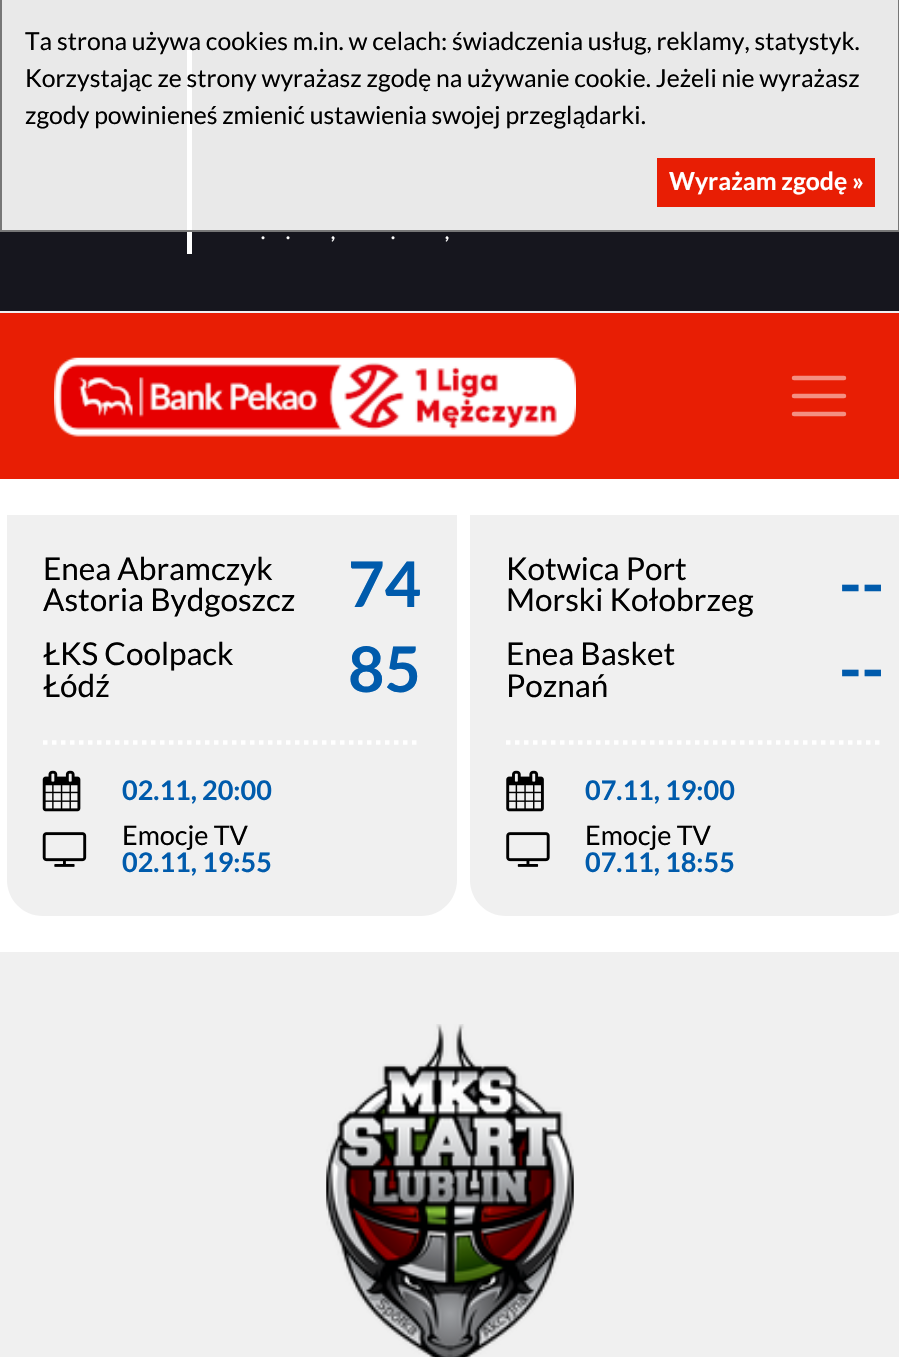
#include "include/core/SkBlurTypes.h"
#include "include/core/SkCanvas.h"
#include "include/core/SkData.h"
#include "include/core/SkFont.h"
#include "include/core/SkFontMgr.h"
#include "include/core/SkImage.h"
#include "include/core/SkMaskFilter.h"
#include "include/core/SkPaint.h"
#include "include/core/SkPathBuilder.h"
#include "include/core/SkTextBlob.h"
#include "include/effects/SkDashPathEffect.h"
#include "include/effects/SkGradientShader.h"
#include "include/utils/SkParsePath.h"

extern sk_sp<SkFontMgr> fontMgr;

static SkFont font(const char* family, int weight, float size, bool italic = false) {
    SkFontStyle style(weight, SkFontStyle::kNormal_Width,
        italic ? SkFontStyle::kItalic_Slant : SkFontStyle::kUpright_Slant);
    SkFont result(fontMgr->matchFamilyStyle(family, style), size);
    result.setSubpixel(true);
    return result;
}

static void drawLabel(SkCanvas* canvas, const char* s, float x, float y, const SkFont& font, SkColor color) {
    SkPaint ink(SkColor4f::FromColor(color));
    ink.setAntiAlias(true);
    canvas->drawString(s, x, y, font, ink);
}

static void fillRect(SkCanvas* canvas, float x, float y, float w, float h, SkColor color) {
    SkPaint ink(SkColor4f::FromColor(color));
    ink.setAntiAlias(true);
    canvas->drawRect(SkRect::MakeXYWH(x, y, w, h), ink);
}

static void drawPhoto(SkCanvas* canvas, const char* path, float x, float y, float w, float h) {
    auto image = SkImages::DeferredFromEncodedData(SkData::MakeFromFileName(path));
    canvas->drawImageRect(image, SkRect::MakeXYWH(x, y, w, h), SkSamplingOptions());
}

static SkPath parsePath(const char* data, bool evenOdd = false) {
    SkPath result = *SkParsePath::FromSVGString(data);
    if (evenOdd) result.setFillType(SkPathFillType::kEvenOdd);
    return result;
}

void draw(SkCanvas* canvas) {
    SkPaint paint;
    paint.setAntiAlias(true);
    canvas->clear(0xFFFFFFFF);
    fillRect(canvas, 0, 0, 899, 311, 0xFF16161E);
    fillRect(canvas, 187, 50, 5, 204, 0xFFFFFFFF);
    paint.setColor(0xE6FFFFFF);
    canvas->drawRect(SkRect::MakeXYWH(1, -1, 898, 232), paint);
    paint.setStroke(true);
    paint.setStrokeWidth(2);
    paint.setColor(0xFF777777);
    canvas->drawRect(SkRect::MakeXYWH(1, -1, 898, 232), paint);
    SkFont font1 = font("Lato", 400, 24.75f);
    drawLabel(canvas, "Ta strona używa cookies m.in. w celach: świadczenia usług, reklamy, statystyk.", 25, 50, font1, 0xFF000000);
    drawLabel(canvas, "Korzystając ze strony wyrażasz zgodę na używanie cookie. Jeżeli nie wyrażasz", 25, 87, font1, 0xFF000000);
    drawLabel(canvas, "zgody powinieneś zmienić ustawienia swojej przeglądarki.", 25, 124, font1, 0xFF000000);
    fillRect(canvas, 657, 158, 218, 49, 0xFFE81E04);
    SkFont font2 = font("Lato", 700, 24.75f);
    drawLabel(canvas, "Wyrażam zgodę »", 669, 190, font2, 0xFFFFFFFF);
    SkFont font3 = font("Lato", 700, 18);
    drawLabel(canvas, ".", 261, 239, font3, 0xFFFFFFFF);
    drawLabel(canvas, ".", 286, 239, font3, 0xFFFFFFFF);
    drawLabel(canvas, ",", 331, 239, font3, 0xFFFFFFFF);
    drawLabel(canvas, ".", 391, 239, font3, 0xFFFFFFFF);
    drawLabel(canvas, ",", 445, 239, font3, 0xFFFFFFFF);
    fillRect(canvas, 0, 311, 899, 2, 0xFFF0F0F0);
    fillRect(canvas, 0, 313, 899, 166, 0xFFE81E04);
    drawPhoto(canvas, "assets/img1.png", 54, 357, 522, 80);
    paint.setStrokeWidth(4.5f);
    paint.setStrokeCap(SkPaint::kRound_Cap);
    paint.setColor(0xFFF48F82);
    canvas->drawPath(parsePath("M794 378H844M794 396H844M794 414H844"), paint);
    paint.setStroke(false);
    paint.setColor(0xFFF0F0F0);
    canvas->drawPath(parsePath("M7 515H457V880C457 900 441 916 421 916H43C23 916 7 900 7 880Z"), paint);
    paint.setStroke(true);
    paint.setStrokeCap(SkPaint::kButt_Cap);
    paint.setColor(0xFFFFFFFF);
    paint.setPathEffect(SkDashPathEffect::Make({{4.5f, 4.5f}}, 0));
    canvas->drawPath(parsePath("M43 742.5H421"), paint);
    paint.setPathEffect(nullptr);
    SkFont font4 = font("Lato", 400, 31.5f);
    drawLabel(canvas, "Enea Abramczyk", 43, 580, font4, 0xFF000000);
    drawLabel(canvas, "Astoria Bydgoszcz", 43, 611, font4, 0xFF000000);
    SkFont font5 = font("Lato", 700, 63);
    drawLabel(canvas, "74", 348, 607, font5, 0xFF005BAC);
    drawLabel(canvas, "ŁKS Coolpack", 43, 665, font4, 0xFF000000);
    drawLabel(canvas, "Łódź", 43, 697, font4, 0xFF000000);
    drawLabel(canvas, "85", 348, 692, font5, 0xFF005BAC);
    drawPhoto(canvas, "assets/img2.png", 42, 770, 39, 42);
    SkFont font6 = font("Lato", 700, 27);
    drawLabel(canvas, "02.11, 20:00", 122, 800, font6, 0xFF005BAC);
    drawPhoto(canvas, "assets/img3.png", 42, 832, 45, 35);
    SkFont font7 = font("Lato", 400, 27);
    drawLabel(canvas, "Emocje TV", 122, 845, font7, 0xFF000000);
    drawLabel(canvas, "02.11, 19:55", 122, 872, font6, 0xFF005BAC);
    paint.setStroke(false);
    paint.setColor(0xFFF0F0F0);
    canvas->drawPath(parsePath("M470 515H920V880C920 900 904 916 884 916H506C486 916 470 900 470 880Z"), paint);
    paint.setStroke(true);
    paint.setColor(0xFFFFFFFF);
    paint.setPathEffect(SkDashPathEffect::Make({{4.5f, 4.5f}}, 0));
    canvas->drawPath(parsePath("M506 742.5H884"), paint);
    paint.setPathEffect(nullptr);
    drawLabel(canvas, "Kotwica Port", 506, 580, font4, 0xFF000000);
    drawLabel(canvas, "Morski Kołobrzeg", 506, 611, font4, 0xFF000000);
    drawLabel(canvas, "--", 839, 607, font5, 0xFF005BAC);
    drawLabel(canvas, "Enea Basket", 506, 665, font4, 0xFF000000);
    drawLabel(canvas, "Poznań", 506, 697, font4, 0xFF000000);
    drawLabel(canvas, "--", 839, 692, font5, 0xFF005BAC);
    drawPhoto(canvas, "assets/img4.png", 506, 770, 38, 42);
    drawLabel(canvas, "07.11, 19:00", 585, 800, font6, 0xFF005BAC);
    drawPhoto(canvas, "assets/img5.png", 506, 832, 44, 35);
    drawLabel(canvas, "Emocje TV", 585, 845, font7, 0xFF000000);
    drawLabel(canvas, "07.11, 18:55", 585, 872, font6, 0xFF005BAC);
    fillRect(canvas, 0, 952, 899, 405, 0xFFF0F0F0);
    drawPhoto(canvas, "assets/img6.png", 326, 1024, 248, 333);
}
